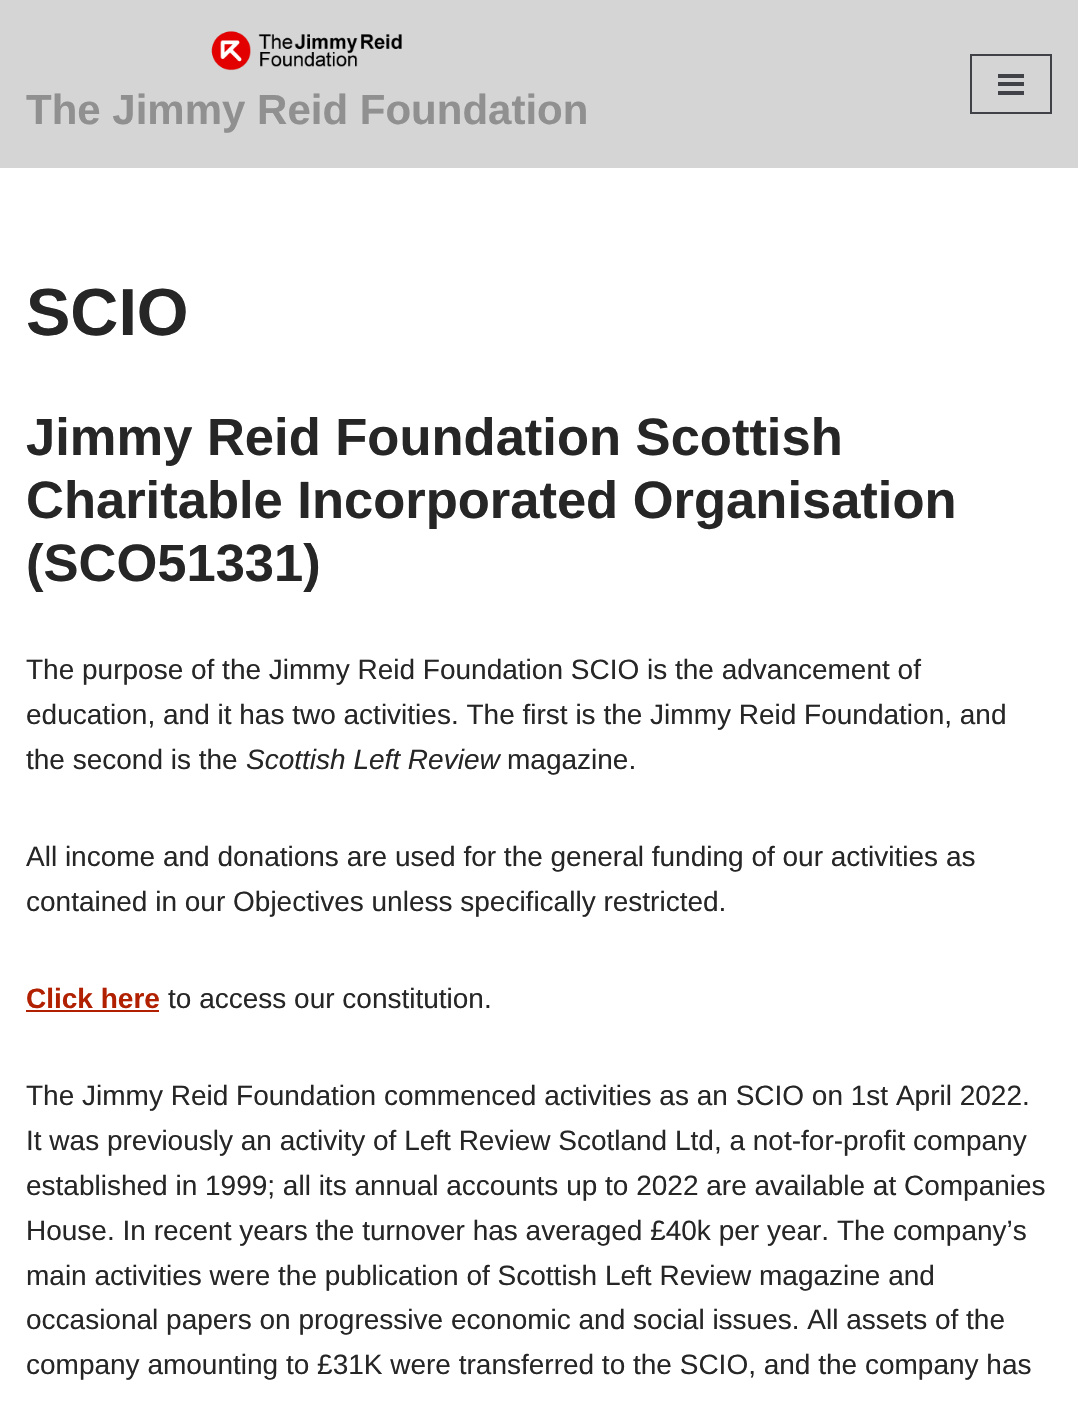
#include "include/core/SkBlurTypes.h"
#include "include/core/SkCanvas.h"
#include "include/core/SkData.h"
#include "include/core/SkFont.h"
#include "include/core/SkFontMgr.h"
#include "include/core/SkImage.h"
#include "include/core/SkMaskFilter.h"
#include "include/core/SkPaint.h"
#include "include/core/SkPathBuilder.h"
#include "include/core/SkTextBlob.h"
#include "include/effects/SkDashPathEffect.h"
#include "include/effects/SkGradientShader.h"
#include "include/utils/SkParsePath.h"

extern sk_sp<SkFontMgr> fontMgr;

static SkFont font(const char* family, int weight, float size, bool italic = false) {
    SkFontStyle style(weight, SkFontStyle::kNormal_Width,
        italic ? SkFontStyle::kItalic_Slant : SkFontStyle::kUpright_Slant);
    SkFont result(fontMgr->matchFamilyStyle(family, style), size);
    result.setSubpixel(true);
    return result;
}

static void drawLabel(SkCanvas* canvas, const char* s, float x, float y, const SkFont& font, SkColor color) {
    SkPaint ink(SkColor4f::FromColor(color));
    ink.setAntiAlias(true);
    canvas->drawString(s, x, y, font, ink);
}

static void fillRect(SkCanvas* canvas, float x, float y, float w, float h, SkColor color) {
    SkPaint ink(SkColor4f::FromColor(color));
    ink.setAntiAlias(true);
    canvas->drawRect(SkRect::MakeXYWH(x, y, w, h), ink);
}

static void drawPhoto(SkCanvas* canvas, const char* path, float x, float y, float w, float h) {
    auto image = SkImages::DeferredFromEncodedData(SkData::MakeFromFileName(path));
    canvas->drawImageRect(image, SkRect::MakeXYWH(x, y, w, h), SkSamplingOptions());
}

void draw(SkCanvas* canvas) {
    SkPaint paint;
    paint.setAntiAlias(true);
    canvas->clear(0xFFFFFFFF);
    fillRect(canvas, 0, 0, 1078, 168, 0xFFD5D5D5);
    drawPhoto(canvas, "assets/img1.png", 211, 31, 191, 40);
    SkFont font1 = font("Liberation Sans", 700, 42);
    drawLabel(canvas, "The Jimmy Reid Foundation", 26, 124, font1, 0xFF909090);
    paint.setStroke(true);
    paint.setStrokeWidth(2);
    paint.setColor(0xFF404248);
    canvas->drawRect(SkRect::MakeXYWH(971, 55, 80, 58), paint);
    fillRect(canvas, 998, 74, 26, 4, 0xFF404248);
    fillRect(canvas, 998, 82, 26, 4, 0xFF404248);
    fillRect(canvas, 998, 91, 26, 4, 0xFF404248);
    SkFont font2 = font("Liberation Sans", 700, 66.5f);
    drawLabel(canvas, "SCIO", 26, 335, font2, 0xFF272626);
    SkFont font3 = font("Liberation Sans", 700, 52.5f);
    drawLabel(canvas, "Jimmy Reid Foundation Scottish", 26, 455, font3, 0xFF272626);
    drawLabel(canvas, "Charitable Incorporated Organisation", 26, 518, font3, 0xFF272626);
    drawLabel(canvas, "(SCO51331)", 26, 581, font3, 0xFF272626);
    SkFont font4 = font("Liberation Sans", 400, 28);
    drawLabel(canvas, "The purpose of the Jimmy Reid Foundation SCIO is the advancement of", 26, 679, font4, 0xFF272626);
    drawLabel(canvas, "education, and it has two activities. The first is the Jimmy Reid Foundation, and", 26, 724, font4, 0xFF272626);
    drawLabel(canvas, "the second is the", 26, 769, font4, 0xFF272626);
    SkFont font5 = font("Liberation Sans", 400, 28, true);
    drawLabel(canvas, "Scottish Left Review", 246, 769, font5, 0xFF272626);
    drawLabel(canvas, "magazine.", 507, 769, font4, 0xFF272626);
    drawLabel(canvas, "All income and donations are used for the general funding of our activities as", 26, 866, font4, 0xFF272626);
    drawLabel(canvas, "contained in our Objectives unless specifically restricted.", 26, 911, font4, 0xFF272626);
    SkFont font6 = font("Liberation Sans", 700, 28);
    drawLabel(canvas, "Click here", 26, 1008, font6, 0xFFB12000);
    fillRect(canvas, 26, 1010, 133, 2, 0xFFB12000);
    drawLabel(canvas, "to access our constitution.", 168, 1008, font4, 0xFF272626);
    drawLabel(canvas, "The Jimmy Reid Foundation commenced activities as an SCIO on 1st April 2022.", 26, 1105, font4, 0xFF272626);
    drawLabel(canvas, "It was previously an activity of Left Review Scotland Ltd, a not-for-profit company", 26, 1150, font4, 0xFF272626);
    drawLabel(canvas, "established in 1999; all its annual accounts up to 2022 are available at Companies", 26, 1195, font4, 0xFF272626);
    drawLabel(canvas, "House. In recent years the turnover has averaged £40k per year. The company’s", 26, 1240, font4, 0xFF272626);
    drawLabel(canvas, "main activities were the publication of Scottish Left Review magazine and", 26, 1285, font4, 0xFF272626);
    drawLabel(canvas, "occasional papers on progressive economic and social issues. All assets of the", 26, 1329, font4, 0xFF272626);
    drawLabel(canvas, "company amounting to £31K were transferred to the SCIO, and the company has", 26, 1374, font4, 0xFF272626);
}
